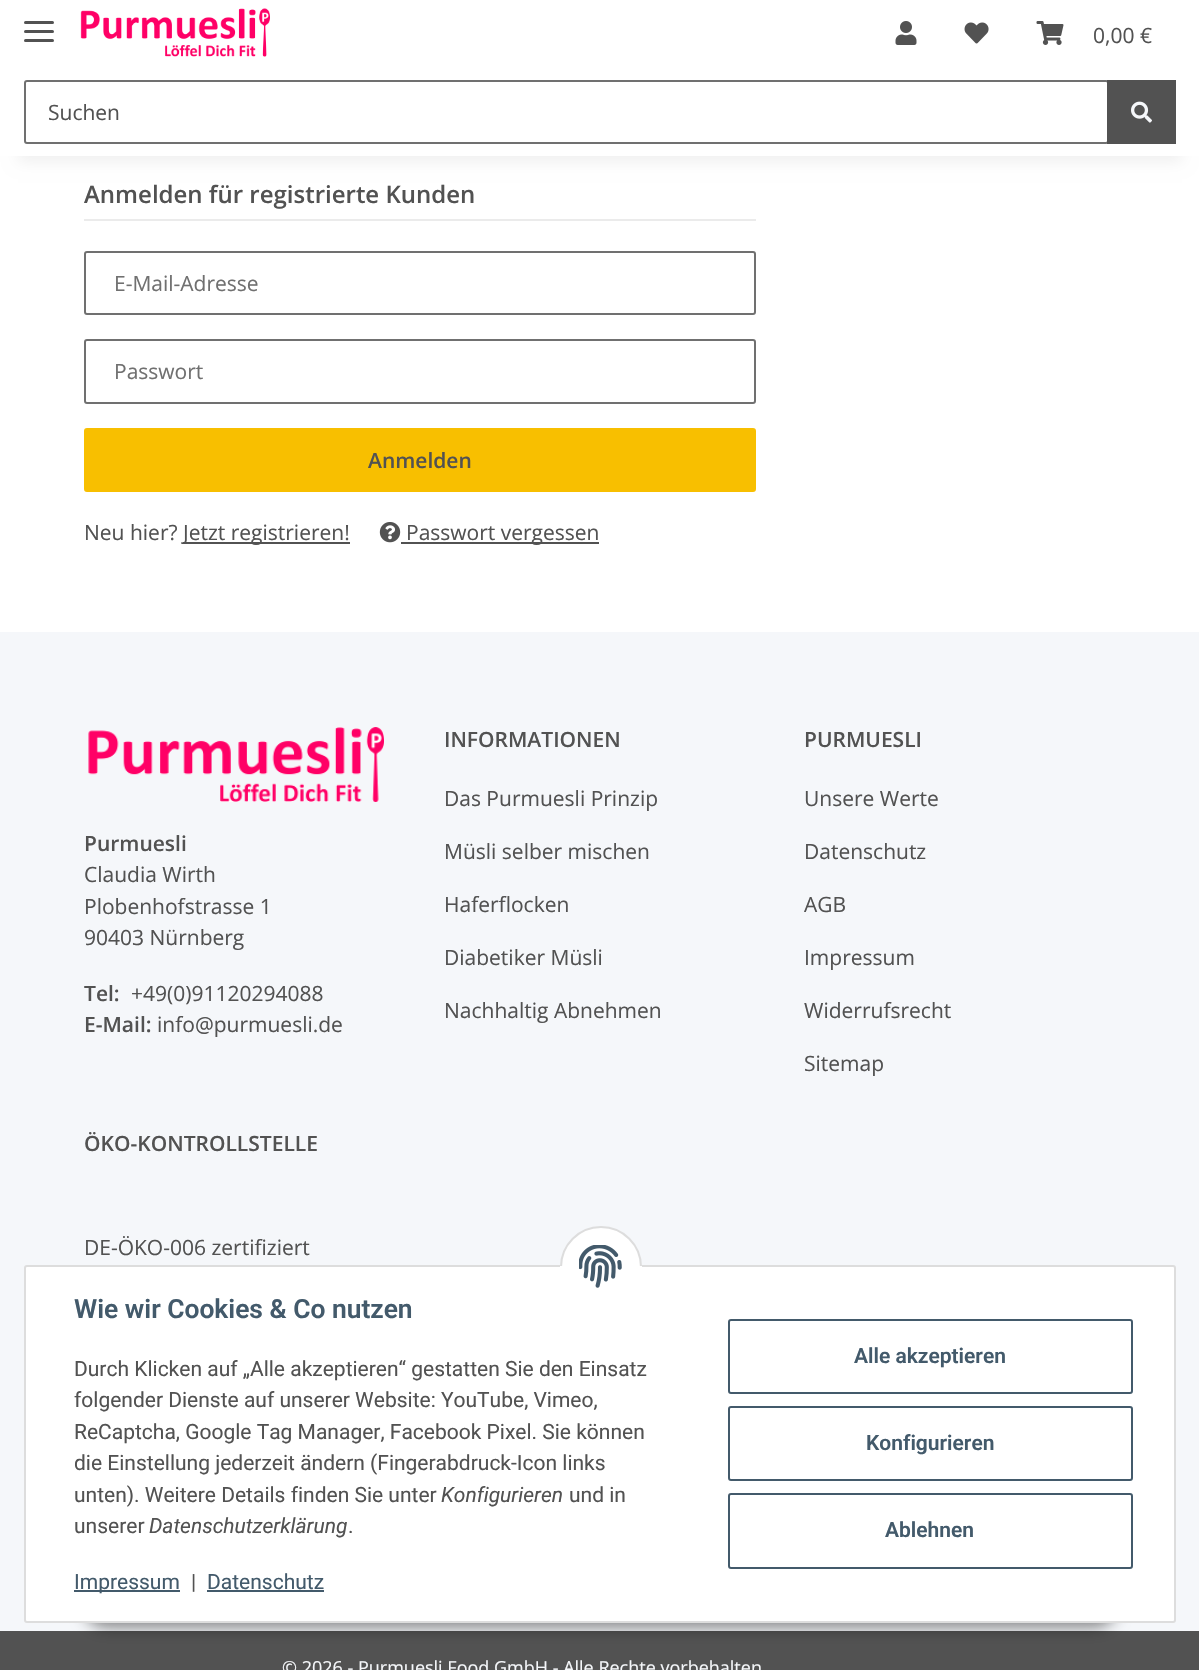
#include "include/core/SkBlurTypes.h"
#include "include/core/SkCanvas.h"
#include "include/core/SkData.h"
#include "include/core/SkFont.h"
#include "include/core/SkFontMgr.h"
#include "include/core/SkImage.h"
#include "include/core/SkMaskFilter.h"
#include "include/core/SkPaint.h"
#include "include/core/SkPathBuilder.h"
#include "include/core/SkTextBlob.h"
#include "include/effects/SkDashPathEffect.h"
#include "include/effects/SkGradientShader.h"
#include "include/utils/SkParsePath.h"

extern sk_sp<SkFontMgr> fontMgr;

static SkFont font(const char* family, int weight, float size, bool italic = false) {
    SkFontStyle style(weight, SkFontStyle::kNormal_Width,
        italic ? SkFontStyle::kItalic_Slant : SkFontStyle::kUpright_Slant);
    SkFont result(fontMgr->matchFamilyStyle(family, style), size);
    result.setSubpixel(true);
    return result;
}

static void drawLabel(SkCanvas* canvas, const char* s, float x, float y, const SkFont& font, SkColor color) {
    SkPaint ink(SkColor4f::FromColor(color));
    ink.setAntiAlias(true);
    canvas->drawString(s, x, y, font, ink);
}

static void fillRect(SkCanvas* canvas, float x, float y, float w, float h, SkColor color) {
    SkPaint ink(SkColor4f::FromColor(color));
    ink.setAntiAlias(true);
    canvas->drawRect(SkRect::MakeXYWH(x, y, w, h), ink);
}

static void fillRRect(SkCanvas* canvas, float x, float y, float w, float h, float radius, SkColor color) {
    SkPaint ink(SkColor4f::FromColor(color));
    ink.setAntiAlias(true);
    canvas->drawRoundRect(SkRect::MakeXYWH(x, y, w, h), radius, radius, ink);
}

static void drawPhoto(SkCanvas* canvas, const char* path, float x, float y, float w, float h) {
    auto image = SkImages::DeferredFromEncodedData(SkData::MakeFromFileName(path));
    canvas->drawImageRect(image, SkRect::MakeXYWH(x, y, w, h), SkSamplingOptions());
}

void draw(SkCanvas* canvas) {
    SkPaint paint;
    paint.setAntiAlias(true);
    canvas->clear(0xFFF5F7FA);
    fillRect(canvas, 0, 156, 1199, 476, 0xFFFFFFFF);
    paint.setColor(0x0F000000);
    paint.setMaskFilter(SkMaskFilter::MakeBlur(kNormal_SkBlurStyle, 7));
    canvas->drawRect(SkRect::MakeXYWH(18, 42, 1164, 120), paint);
    paint.setMaskFilter(nullptr);
    fillRect(canvas, 0, 0, 1199, 156, 0xFFFFFFFF);
    fillRRect(canvas, 24, 30, 30, 3, 1.5f, 0xFF525252);
    fillRRect(canvas, 24, 21, 30, 3, 1.5f, 0xFF525252);
    fillRRect(canvas, 24, 39, 30, 3, 1.5f, 0xFF525252);
    drawPhoto(canvas, "assets/img1.png", 80, 8, 190, 49);
    drawPhoto(canvas, "assets/img2.png", 895, 21, 22, 24);
    drawPhoto(canvas, "assets/img3.png", 964, 22, 25, 22);
    drawPhoto(canvas, "assets/img4.png", 1036, 21, 28, 24);
    SkFont font1 = font("Open Sans", 400, 21);
    drawLabel(canvas, "0,00 €", 1093, 43, font1, 0xFF525252);
    paint.setStroke(true);
    paint.setStrokeWidth(2);
    paint.setColor(0xFF707070);
    canvas->drawRoundRect(SkRect::MakeXYWH(25, 81, 1083, 62), 2, 2, paint);
    drawLabel(canvas, "Suchen", 48, 120, font1, 0xFF525252);
    fillRect(canvas, 1107, 80, 69, 64, 0xFF525252);
    drawPhoto(canvas, "assets/img5.png", 1131, 101, 21, 22);
    fillRect(canvas, 84, 219, 672, 2, 0xFFEBEBEB);
    SkFont font2 = font("Open Sans", 600, 24);
    drawLabel(canvas, "Anmelden für registrierte Kunden", 84, 203, font2, 0xFF525252);
    canvas->drawRoundRect(SkRect::MakeXYWH(85, 252, 670, 62), 2, 2, paint);
    drawLabel(canvas, "E-Mail-Adresse", 114, 291, font1, 0xFF707070);
    canvas->drawRoundRect(SkRect::MakeXYWH(85, 340, 670, 63), 2, 2, paint);
    drawLabel(canvas, "Passwort", 114, 379, font1, 0xFF707070);
    paint.setStroke(false);
    paint.setColor(0xFFF8BF00);
    canvas->drawRoundRect(SkRect::MakeXYWH(85, 429, 670, 62), 2, 2, paint);
    paint.setStroke(true);
    canvas->drawRoundRect(SkRect::MakeXYWH(85, 429, 670, 62), 2, 2, paint);
    SkFont font3 = font("Open Sans", 600, 21);
    drawLabel(canvas, "Anmelden", 368, 468, font3, 0xFF525252);
    drawLabel(canvas, "Neu hier?", 84, 540, font1, 0xFF525252);
    fillRect(canvas, 183, 542, 167, 2, 0xFF525252);
    drawLabel(canvas, "Jetzt registrieren!", 183, 540, font1, 0xFF525252);
    drawPhoto(canvas, "assets/img6.png", 379, 522, 22, 21);
    fillRect(canvas, 401, 542, 198, 2, 0xFF525252);
    drawLabel(canvas, "Passwort vergessen", 406, 540, font1, 0xFF525252);
    drawPhoto(canvas, "assets/img7.png", 88, 727, 296, 75);
    drawLabel(canvas, "Purmuesli", 84, 851, font3, 0xFF525252);
    drawLabel(canvas, "Claudia Wirth", 84, 882, font1, 0xFF525252);
    drawLabel(canvas, "Plobenhofstrasse 1", 84, 914, font1, 0xFF525252);
    drawLabel(canvas, "90403 Nürnberg", 84, 945, font1, 0xFF525252);
    drawLabel(canvas, "Tel:", 84, 1001, font3, 0xFF525252);
    drawLabel(canvas, "+49(0)91120294088", 131, 1001, font1, 0xFF525252);
    drawLabel(canvas, "E-Mail:", 84, 1032, font3, 0xFF525252);
    drawLabel(canvas, "info@purmuesli.de", 157, 1032, font1, 0xFF525252);
    drawLabel(canvas, "INFORMATIONEN", 444, 747, font3, 0xFF525252);
    drawLabel(canvas, "Das Purmuesli Prinzip", 444, 806, font1, 0xFF525252);
    drawLabel(canvas, "Müsli selber mischen", 444, 859, font1, 0xFF525252);
    drawLabel(canvas, "Haferflocken", 444, 912, font1, 0xFF525252);
    drawLabel(canvas, "Diabetiker Müsli", 444, 965, font1, 0xFF525252);
    drawLabel(canvas, "Nachhaltig Abnehmen", 444, 1018, font1, 0xFF525252);
    drawLabel(canvas, "PURMUESLI", 804, 747, font3, 0xFF525252);
    drawLabel(canvas, "Unsere Werte", 804, 806, font1, 0xFF525252);
    drawLabel(canvas, "Datenschutz", 804, 859, font1, 0xFF525252);
    drawLabel(canvas, "AGB", 804, 912, font1, 0xFF525252);
    drawLabel(canvas, "Impressum", 804, 965, font1, 0xFF525252);
    drawLabel(canvas, "Widerrufsrecht", 804, 1018, font1, 0xFF525252);
    drawLabel(canvas, "Sitemap", 804, 1071, font1, 0xFF525252);
    drawLabel(canvas, "ÖKO-KONTROLLSTELLE", 84, 1151, font3, 0xFF525252);
    drawLabel(canvas, "DE-ÖKO-006 zertifiziert", 84, 1255, font1, 0xFF525252);
    fillRect(canvas, 0, 1631, 1199, 39, 0xFF525252);
    SkFont font4 = font("Open Sans", 400, 18);
    drawLabel(canvas, "© 2026 - Purmuesli Food GmbH - Alle Rechte vorbehalten", 282, 1674, font4, 0xFFF5F7FA);
    paint.setStroke(false);
    paint.setColor(0x73000000);
    paint.setMaskFilter(SkMaskFilter::MakeBlur(kNormal_SkBlurStyle, 7.5f));
    canvas->drawRoundRect(SkRect::MakeXYWH(83, 1580, 1035, 48), 24, 24, paint);
    paint.setMaskFilter(nullptr);
    paint.setColor(0xFFFFFFFF);
    canvas->drawRoundRect(SkRect::MakeXYWH(25, 1266, 1150, 356), 2, 2, paint);
    paint.setStroke(true);
    paint.setColor(0xFFDDDDDD);
    canvas->drawRoundRect(SkRect::MakeXYWH(25, 1266, 1150, 356), 2, 2, paint);
    paint.setStroke(false);
    paint.setColor(0xFFFFFFFF);
    canvas->drawCircle(601, 1267, 40, paint);
    paint.setStroke(true);
    paint.setColor(0xFFDDDDDD);
    canvas->drawCircle(601, 1267, 40, paint);
    fillRect(canvas, 560, 1266, 82, 42, 0xFFFFFFFF);
    drawPhoto(canvas, "assets/img8.png", 579, 1245, 43, 43);
    SkFont font5 = font("Roboto", 600, 26.4f);
    drawLabel(canvas, "Wie wir Cookies & Co nutzen", 74, 1318, font5, 0xFF435A6B);
    SkFont font6 = font("Roboto", 400, 21);
    drawLabel(canvas, "Durch Klicken auf „Alle akzeptieren“ gestatten Sie den Einsatz", 74, 1376, font6, 0xFF525252);
    drawLabel(canvas, "folgender Dienste auf unserer Website: YouTube, Vimeo,", 74, 1407, font6, 0xFF525252);
    drawLabel(canvas, "ReCaptcha, Google Tag Manager, Facebook Pixel. Sie können", 74, 1439, font6, 0xFF525252);
    drawLabel(canvas, "die Einstellung jederzeit ändern (Fingerabdruck-Icon links", 74, 1470, font6, 0xFF525252);
    drawLabel(canvas, "unten). Weitere Details finden Sie unter", 74, 1502, font6, 0xFF525252);
    SkFont font7 = font("Roboto", 400, 21, true);
    drawLabel(canvas, "Konfigurieren", 441, 1502, font7, 0xFF525252);
    drawLabel(canvas, "und in", 569, 1502, font6, 0xFF525252);
    drawLabel(canvas, "unserer", 74, 1533, font6, 0xFF525252);
    drawLabel(canvas, "Datenschutzerklärung", 149, 1533, font7, 0xFF525252);
    drawLabel(canvas, ".", 348, 1533, font6, 0xFF525252);
    fillRect(canvas, 74, 1590, 106, 2, 0xFF435A6B);
    drawLabel(canvas, "Impressum", 74, 1589, font6, 0xFF435A6B);
    drawLabel(canvas, "|", 191, 1589, font6, 0xFF525252);
    drawLabel(canvas, "Datenschutz", 207, 1589, font6, 0xFF435A6B);
    fillRect(canvas, 207, 1590, 117, 2, 0xFF435A6B);
    paint.setColor(0xFF435A6B);
    canvas->drawRoundRect(SkRect::MakeXYWH(729, 1320, 403, 73), 2, 2, paint);
    SkFont font8 = font("Roboto", 600, 21);
    drawLabel(canvas, "Alle akzeptieren", 854, 1363, font8, 0xFF435A6B);
    canvas->drawRoundRect(SkRect::MakeXYWH(729, 1407, 403, 73), 2, 2, paint);
    drawLabel(canvas, "Konfigurieren", 866, 1450, font8, 0xFF435A6B);
    canvas->drawRoundRect(SkRect::MakeXYWH(729, 1494, 403, 74), 2, 2, paint);
    drawLabel(canvas, "Ablehnen", 885, 1537, font8, 0xFF435A6B);
}
